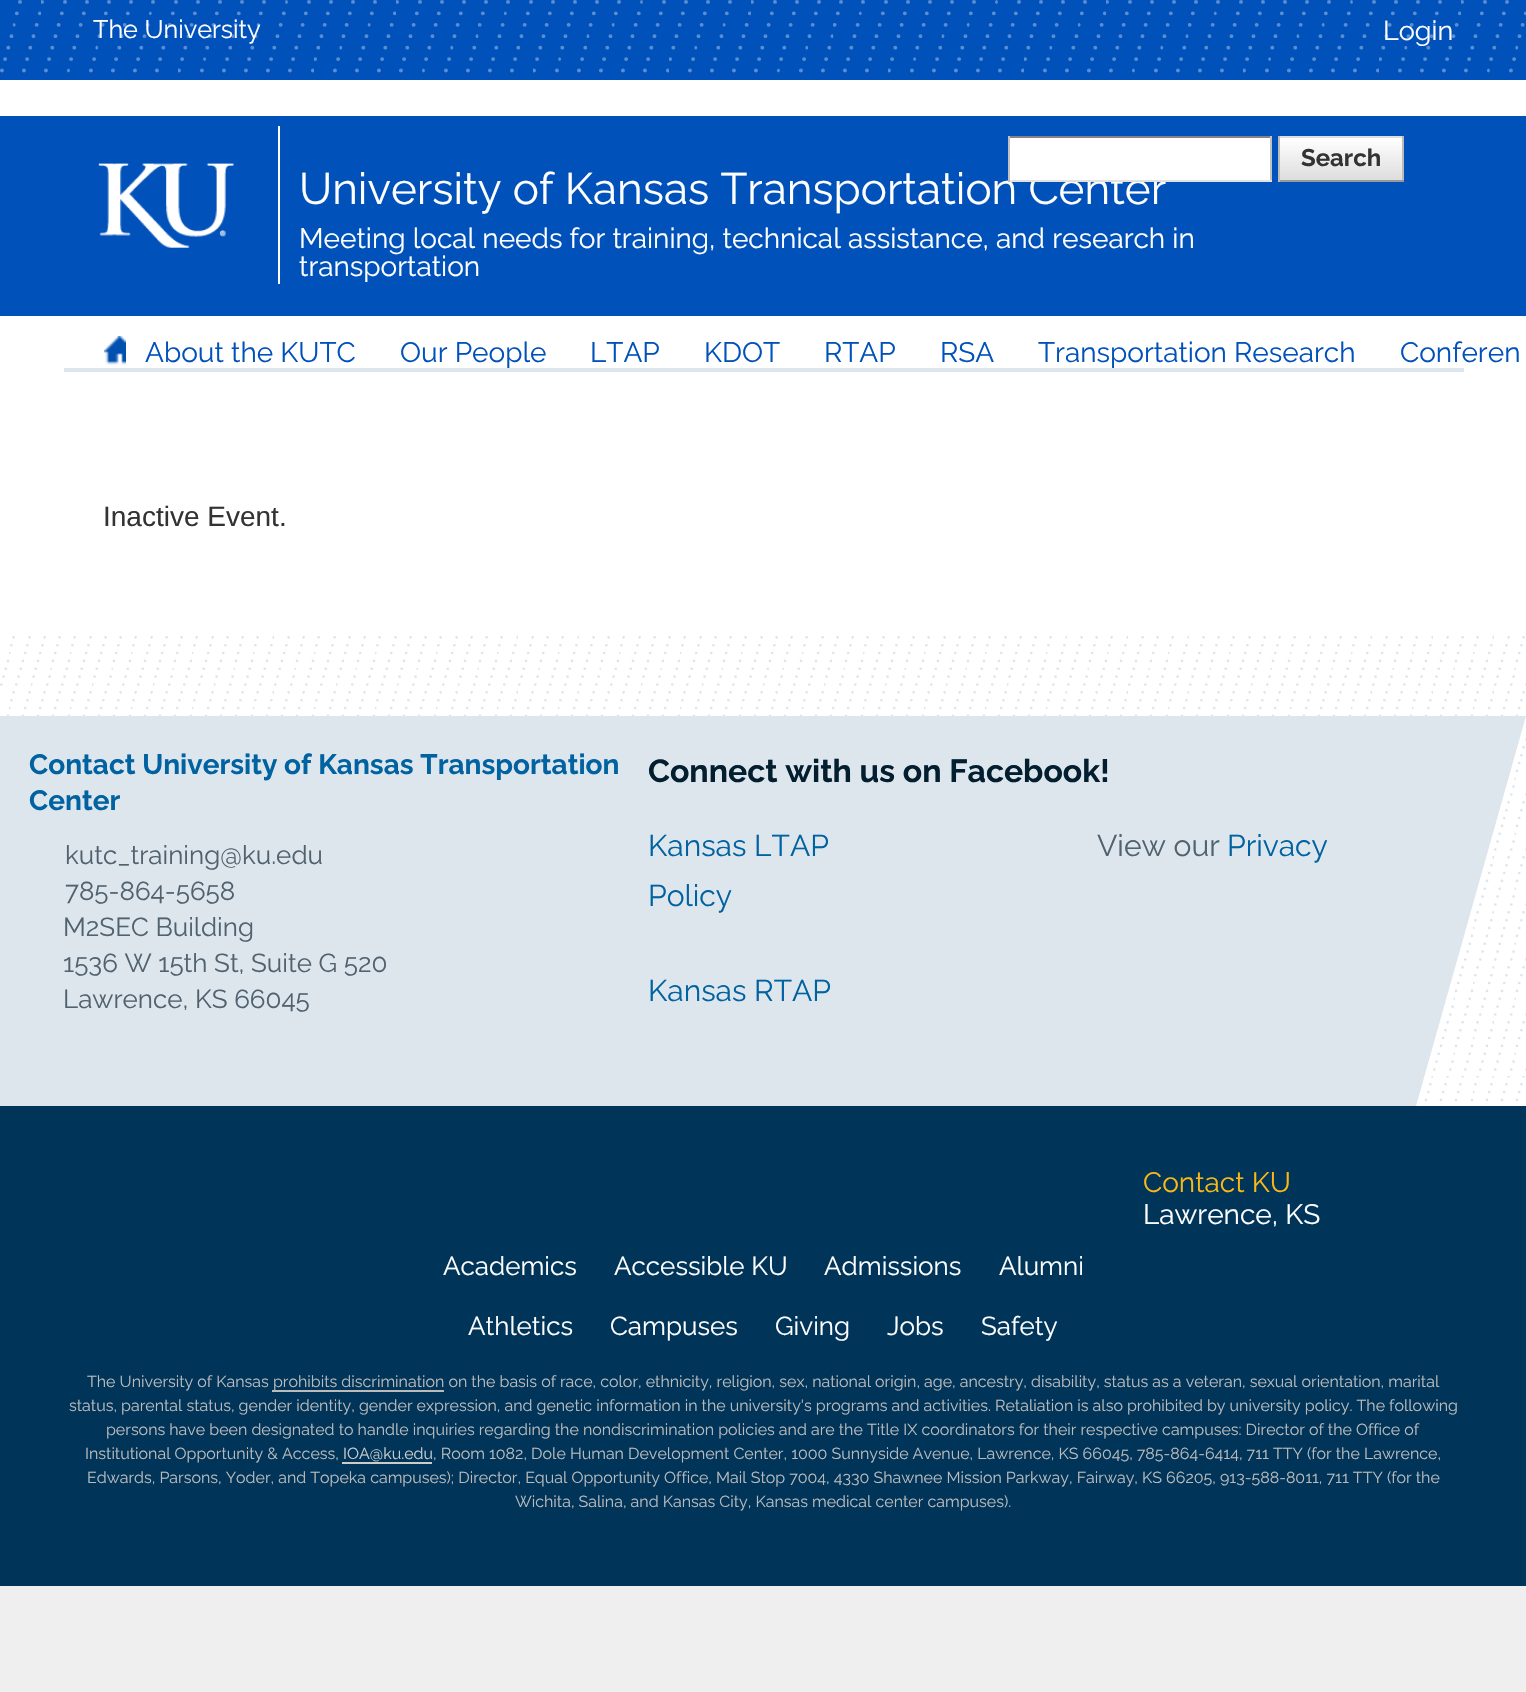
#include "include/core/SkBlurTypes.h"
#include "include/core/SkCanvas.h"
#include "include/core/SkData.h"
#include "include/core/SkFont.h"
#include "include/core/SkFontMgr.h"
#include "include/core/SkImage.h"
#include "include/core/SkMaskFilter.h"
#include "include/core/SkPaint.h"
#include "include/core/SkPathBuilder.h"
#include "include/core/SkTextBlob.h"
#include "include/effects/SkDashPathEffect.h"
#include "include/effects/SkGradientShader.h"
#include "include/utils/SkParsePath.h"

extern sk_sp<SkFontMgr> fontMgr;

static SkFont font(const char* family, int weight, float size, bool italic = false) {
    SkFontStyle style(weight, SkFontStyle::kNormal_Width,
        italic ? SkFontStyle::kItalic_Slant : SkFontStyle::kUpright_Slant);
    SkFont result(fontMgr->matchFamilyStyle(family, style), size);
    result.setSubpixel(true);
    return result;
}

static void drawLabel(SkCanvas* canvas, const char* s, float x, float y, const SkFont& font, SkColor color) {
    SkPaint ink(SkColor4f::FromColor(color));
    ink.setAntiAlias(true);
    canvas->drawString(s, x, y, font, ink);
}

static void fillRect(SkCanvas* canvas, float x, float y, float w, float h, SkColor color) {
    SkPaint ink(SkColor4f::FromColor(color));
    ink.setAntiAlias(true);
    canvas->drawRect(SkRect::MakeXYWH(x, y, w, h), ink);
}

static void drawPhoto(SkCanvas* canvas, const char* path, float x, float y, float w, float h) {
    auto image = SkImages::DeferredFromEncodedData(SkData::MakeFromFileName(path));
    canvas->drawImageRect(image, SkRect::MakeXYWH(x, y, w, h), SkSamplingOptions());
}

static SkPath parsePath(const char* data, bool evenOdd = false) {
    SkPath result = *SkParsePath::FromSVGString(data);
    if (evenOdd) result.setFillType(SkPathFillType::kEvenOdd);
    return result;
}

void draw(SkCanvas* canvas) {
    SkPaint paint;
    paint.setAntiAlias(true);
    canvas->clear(0xFFEFEFEF);
    fillRect(canvas, 0, 80, 1526, 1026, 0xFFFFFFFF);
    fillRect(canvas, 0, 0, 1526, 80, 0xFF0051BA);
    drawPhoto(canvas, "assets/img1.png", 0, 0, 1526, 73);
    SkFont font1 = font("Raleway", 400, 25.25f);
    drawLabel(canvas, "The University", 93, 38, font1, 0xFFFFFFFF);
    SkFont font2 = font("Raleway", 400, 27);
    drawLabel(canvas, "Login", 1383, 40, font2, 0xFFFFFFFF);
    fillRect(canvas, 0, 116, 1526, 200, 0xFF0051BA);
    fillRect(canvas, 1010, 138, 260, 42, 0xFFFFFFFF);
    fillRect(canvas, 1008, 136, 264, 2, 0xFF848484);
    fillRect(canvas, 1270, 136, 2, 46, 0xFFC1C1C1);
    SkFont font3 = font("Raleway", 400, 44);
    drawLabel(canvas, "University of Kansas Transportation Center", 299, 204, font3, 0xFFFFFFFF);
    fillRect(canvas, 1008, 180, 264, 2, 0xFFE1E1E1);
    fillRect(canvas, 1008, 136, 2, 46, 0xFFC1C1C1);
    {
        const SkColor colors[] = {0xFFFFFFFF, 0xFFDDDDDD};
        const float stops[] = {0, 1};
        const SkPoint ends[] = {{1280, 96}, {1280, 138}};
        paint.setShader(SkGradientShader::MakeLinear(ends, colors, stops, 2, SkTileMode::kClamp));
        paint.setAlpha(255);
    }
    canvas->drawRect(SkRect::MakeXYWH(1278, 136, 126, 2), paint);
    {
        const SkColor colors[] = {0xFFFFFFFF, 0xFFDDDDDD};
        const float stops[] = {0, 1};
        const SkPoint ends[] = {{1280, 138}, {1280, 180}};
        paint.setShader(SkGradientShader::MakeLinear(ends, colors, stops, 2, SkTileMode::kClamp));
        paint.setAlpha(255);
    }
    canvas->drawRect(SkRect::MakeXYWH(1280, 138, 122, 42), paint);
    fillRect(canvas, 1402, 136, 2, 46, 0xFFBBBBBB);
    fillRect(canvas, 1278, 180, 126, 2, 0xFF999999);
    fillRect(canvas, 1278, 136, 2, 46, 0xFFBBBBBB);
    SkFont font4 = font("Raleway", 700, 24);
    drawLabel(canvas, "Search", 1301, 166, font4, 0xFF333333);
    drawPhoto(canvas, "assets/img2.png", 98, 163, 136, 85);
    fillRect(canvas, 278, 126, 2, 158, 0xFFFFFFFF);
    SkFont font5 = font("Raleway", 400, 28);
    drawLabel(canvas, "Meeting local needs for training, technical assistance, and research in", 299, 248, font5, 0xFFFFFFFF);
    drawLabel(canvas, "transportation", 299, 276, font5, 0xFFFFFFFF);
    fillRect(canvas, 64, 368, 1400, 4, 0xFFDDE5ED);
    drawPhoto(canvas, "assets/img3.png", 104, 336, 22, 29);
    drawLabel(canvas, "About the KUTC", 145, 362, font5, 0xFF0051BA);
    drawLabel(canvas, "Our People", 400, 362, font5, 0xFF0051BA);
    drawLabel(canvas, "LTAP", 590, 362, font5, 0xFF0051BA);
    drawLabel(canvas, "KDOT", 704, 362, font5, 0xFF0051BA);
    drawLabel(canvas, "RTAP", 824, 362, font5, 0xFF0051BA);
    drawLabel(canvas, "RSA", 940, 362, font5, 0xFF0051BA);
    drawLabel(canvas, "Transportation Research", 1038, 362, font5, 0xFF0051BA);
    drawLabel(canvas, "Conferen", 1400, 362, font5, 0xFF0051BA);
    SkFont font6 = font("Liberation Sans", 400, 28);
    drawLabel(canvas, "Inactive Event.", 103, 526, font6, 0xFF333333);
    drawPhoto(canvas, "assets/img4.png", 0, 636, 1526, 466);
    paint.setShader(nullptr);
    paint.setColor(0xFFDDE5ED);
    canvas->drawPath(parsePath("M0 716H1526L1416 1106H0Z"), paint);
    SkFont font7 = font("Raleway", 700, 28);
    drawLabel(canvas, "Contact University of Kansas Transportation", 29, 774, font7, 0xFF0062A0);
    drawLabel(canvas, "Center", 29, 810, font7, 0xFF0062A0);
    SkFont font8 = font("Raleway", 400, 26);
    drawLabel(canvas, "kutc_training@ku.edu", 65, 864, font8, 0xFF51626F);
    drawLabel(canvas, "785-864-5658", 65, 900, font8, 0xFF51626F);
    drawLabel(canvas, "M2SEC Building", 63, 936, font8, 0xFF51626F);
    drawLabel(canvas, "1536 W 15th St, Suite G 520", 63, 972, font8, 0xFF51626F);
    drawLabel(canvas, "Lawrence, KS 66045", 63, 1008, font8, 0xFF51626F);
    SkFont font9 = font("Raleway", 700, 32);
    drawLabel(canvas, "Connect with us on Facebook!", 648, 782, font9, 0xFF021E2F);
    SkFont font10 = font("Raleway", 400, 30);
    drawLabel(canvas, "Kansas LTAP", 648, 856, font10, 0xFF0062A0);
    drawLabel(canvas, "View our", 1097, 856, font10, 0xFF51626F);
    drawLabel(canvas, "Privacy", 1227, 856, font10, 0xFF0062A0);
    drawLabel(canvas, "Policy", 648, 906, font10, 0xFF0062A0);
    drawLabel(canvas, "Kansas RTAP", 648, 1001, font10, 0xFF0062A0);
    fillRect(canvas, 0, 1106, 1526, 480, 0xFF003459);
    drawLabel(canvas, "Contact KU", 1143, 1192, font5, 0xFFFAB817);
    drawLabel(canvas, "Lawrence, KS", 1143, 1224, font5, 0xFFFFFFFF);
    drawLabel(canvas, "Academics", 443, 1275, font8, 0xFFFFFFFF);
    drawLabel(canvas, "Accessible KU", 614, 1275, font8, 0xFFFFFFFF);
    drawLabel(canvas, "Admissions", 824, 1275, font8, 0xFFFFFFFF);
    drawLabel(canvas, "Alumni", 999, 1275, font8, 0xFFFFFFFF);
    drawLabel(canvas, "Athletics", 468, 1335, font8, 0xFFFFFFFF);
    drawLabel(canvas, "Campuses", 610, 1335, font8, 0xFFFFFFFF);
    drawLabel(canvas, "Giving", 775, 1335, font8, 0xFFFFFFFF);
    drawLabel(canvas, "Jobs", 887, 1335, font8, 0xFFFFFFFF);
    drawLabel(canvas, "Safety", 981, 1335, font8, 0xFFFFFFFF);
    SkFont font11 = font("Raleway", 400, 16);
    drawLabel(canvas, "The University of Kansas", 87, 1387, font11, 0xFFBBBBBB);
    fillRect(canvas, 272, 1390, 172, 2, 0xFFBBBBBB);
    drawLabel(canvas, "prohibits discrimination on the basis of race, color, ethnicity, religion, sex, national origin, age, ancestry, disability, status as a veteran, sexual orientation, marital", 273, 1387, font11, 0xFFBBBBBB);
    drawLabel(canvas, "status, parental status, gender identity, gender expression, and genetic information in the university's programs and activities. Retaliation is also prohibited by university policy. The following", 69, 1411, font11, 0xFFBBBBBB);
    drawLabel(canvas, "persons have been designated to handle inquiries regarding the nondiscrimination policies and are the Title IX coordinators for their respective campuses: Director of the Office of", 106, 1435, font11, 0xFFBBBBBB);
    drawLabel(canvas, "Institutional Opportunity & Access,", 85, 1459, font11, 0xFFBBBBBB);
    drawLabel(canvas, "IOA@ku.edu", 343, 1459, font11, 0xFFCCCCCC);
    fillRect(canvas, 342, 1462, 90, 2, 0xFFCCCCCC);
    drawLabel(canvas, ", Room 1082, Dole Human Development Center, 1000 Sunnyside Avenue, Lawrence, KS 66045, 785-864-6414, 711 TTY (for the Lawrence,", 433, 1459, font11, 0xFFBBBBBB);
    drawLabel(canvas, "Edwards, Parsons, Yoder, and Topeka campuses); Director, Equal Opportunity Office, Mail Stop 7004, 4330 Shawnee Mission Parkway, Fairway, KS 66205, 913-588-8011, 711 TTY (for the", 87, 1483, font11, 0xFFBBBBBB);
    drawLabel(canvas, "Wichita, Salina, and Kansas City, Kansas medical center campuses).", 515, 1507, font11, 0xFFBBBBBB);
}
